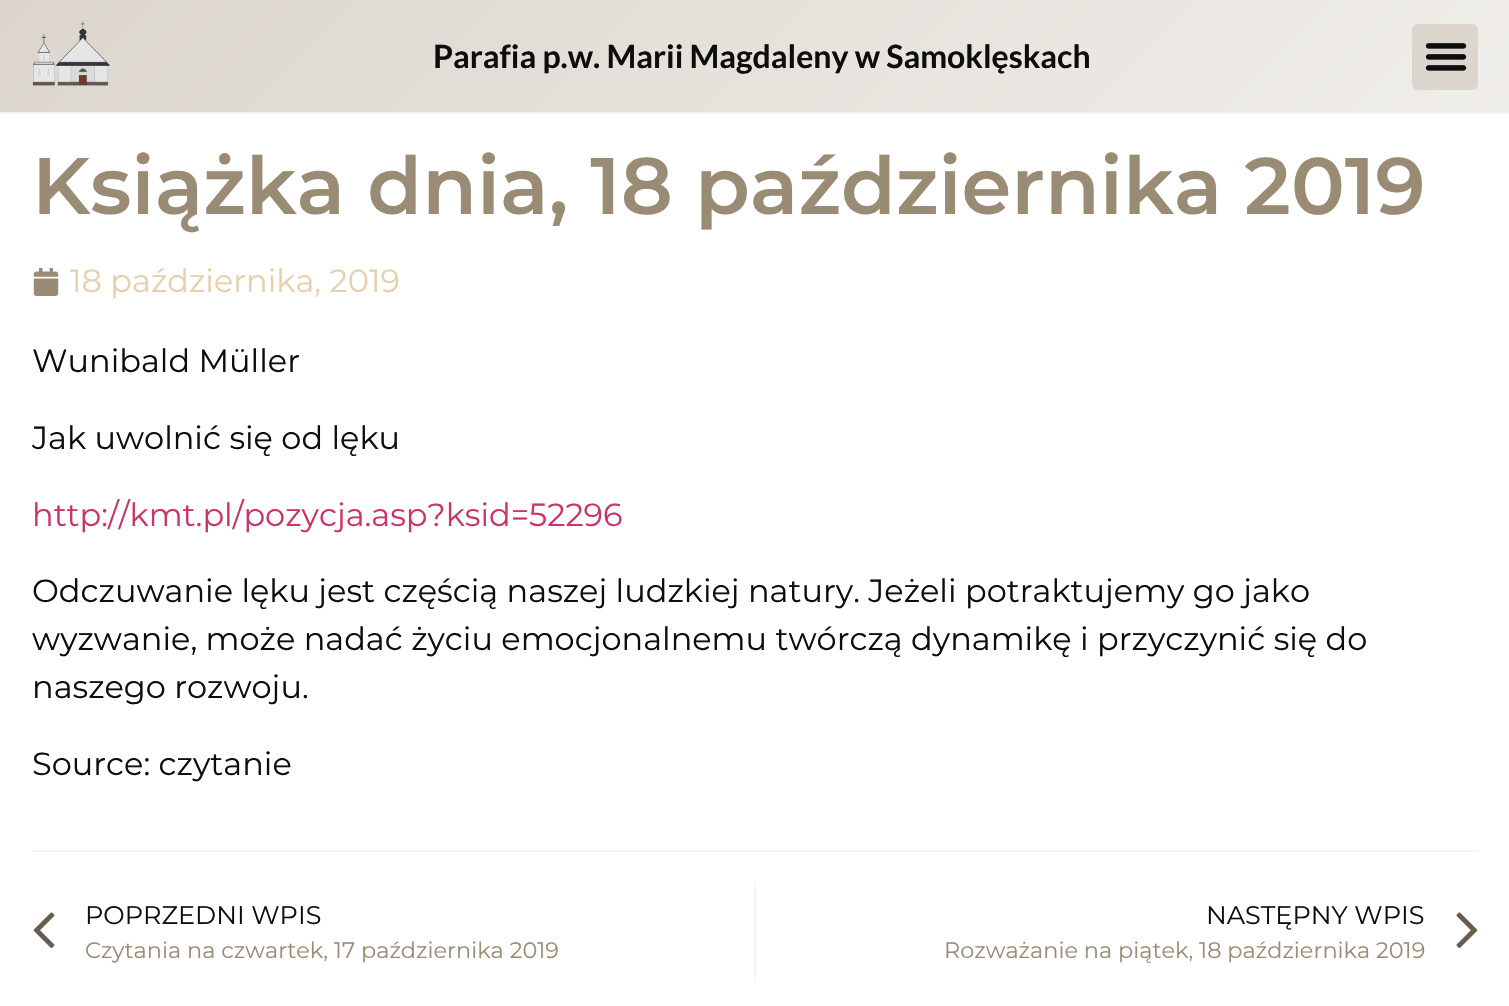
#include "include/core/SkBlurTypes.h"
#include "include/core/SkCanvas.h"
#include "include/core/SkData.h"
#include "include/core/SkFont.h"
#include "include/core/SkFontMgr.h"
#include "include/core/SkImage.h"
#include "include/core/SkMaskFilter.h"
#include "include/core/SkPaint.h"
#include "include/core/SkPathBuilder.h"
#include "include/core/SkTextBlob.h"
#include "include/effects/SkDashPathEffect.h"
#include "include/effects/SkGradientShader.h"
#include "include/utils/SkParsePath.h"

extern sk_sp<SkFontMgr> fontMgr;

static SkFont font(const char* family, int weight, float size, bool italic = false) {
    SkFontStyle style(weight, SkFontStyle::kNormal_Width,
        italic ? SkFontStyle::kItalic_Slant : SkFontStyle::kUpright_Slant);
    SkFont result(fontMgr->matchFamilyStyle(family, style), size);
    result.setSubpixel(true);
    return result;
}

static void drawLabel(SkCanvas* canvas, const char* s, float x, float y, const SkFont& font, SkColor color) {
    SkPaint ink(SkColor4f::FromColor(color));
    ink.setAntiAlias(true);
    canvas->drawString(s, x, y, font, ink);
}

static void fillRect(SkCanvas* canvas, float x, float y, float w, float h, SkColor color) {
    SkPaint ink(SkColor4f::FromColor(color));
    ink.setAntiAlias(true);
    canvas->drawRect(SkRect::MakeXYWH(x, y, w, h), ink);
}

static void fillRRect(SkCanvas* canvas, float x, float y, float w, float h, float radius, SkColor color) {
    SkPaint ink(SkColor4f::FromColor(color));
    ink.setAntiAlias(true);
    canvas->drawRoundRect(SkRect::MakeXYWH(x, y, w, h), radius, radius, ink);
}

static void drawPhoto(SkCanvas* canvas, const char* path, float x, float y, float w, float h) {
    auto image = SkImages::DeferredFromEncodedData(SkData::MakeFromFileName(path));
    canvas->drawImageRect(image, SkRect::MakeXYWH(x, y, w, h), SkSamplingOptions());
}

void draw(SkCanvas* canvas) {
    SkPaint paint;
    paint.setAntiAlias(true);
    canvas->clear(0xFFFFFFFF);
    {
        const SkColor colors[] = {0xFFDBD5CD, 0xFFF0EEEA};
        const float stops[] = {0, 1};
        const SkPoint ends[] = {{350, -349}, {1161, 461}};
        paint.setShader(SkGradientShader::MakeLinear(ends, colors, stops, 2, SkTileMode::kClamp));
        paint.setAlpha(255);
    }
    canvas->drawRect(SkRect::MakeXYWH(0, 0, 1509, 112), paint);
    fillRect(canvas, 0, 112, 1509, 2, 0xFFF5F5F5);
    drawPhoto(canvas, "assets/img1.png", 32, 20, 79, 66);
    SkFont font1 = font("Lato", 700, 32);
    drawLabel(canvas, "Parafia p.w. Marii Magdaleny w Samoklęskach", 433, 68, font1, 0xFF0D0D0D);
    fillRRect(canvas, 1412, 24, 66, 66, 6, 0xFFDBD5CD);
    drawPhoto(canvas, "assets/img2.png", 1425, 43, 42, 28);
    SkFont font2 = font("Montserrat", 600, 80);
    drawLabel(canvas, "Książka dnia, 18 października 2019", 32, 214, font2, 0xFF9A8B74);
    drawPhoto(canvas, "assets/img3.png", 33, 268, 26, 28);
    SkFont font3 = font("Montserrat", 400, 32);
    drawLabel(canvas, "18 października, 2019", 70, 292, font3, 0xFFE6D0AD);
    drawLabel(canvas, "Wunibald Müller", 32, 372, font3, 0xFF0D0D0D);
    drawLabel(canvas, "Jak uwolnić się od lęku", 32, 449, font3, 0xFF0D0D0D);
    drawLabel(canvas, "http://kmt.pl/pozycja.asp?ksid=52296", 32, 526, font3, 0xFFCC3366);
    drawLabel(canvas, "Odczuwanie lęku jest częścią naszej ludzkiej natury. Jeżeli potraktujemy go jako", 32, 602, font3, 0xFF0D0D0D);
    drawLabel(canvas, "wyzwanie, może nadać życiu emocjonalnemu twórczą dynamikę i przyczynić się do", 32, 650, font3, 0xFF0D0D0D);
    drawLabel(canvas, "naszego rozwoju.", 32, 698, font3, 0xFF0D0D0D);
    drawLabel(canvas, "Source: czytanie", 32, 775, font3, 0xFF0D0D0D);
    fillRect(canvas, 32, 850, 1446, 2, 0xFFF5F5F5);
    drawPhoto(canvas, "assets/img4.png", 33, 912, 22, 36);
    SkFont font4 = font("Montserrat", 400, 25.5f);
    drawLabel(canvas, "POPRZEDNI WPIS", 85, 924, font4, 0xFF0D0D0D);
    SkFont font5 = font("Montserrat", 400, 22.4f);
    drawLabel(canvas, "Czytania na czwartek, 17 października 2019", 85, 958, font5, 0xFF9A8B74);
    fillRect(canvas, 754, 884, 2, 96, 0xFFF5F5F5);
    drawLabel(canvas, "NASTĘPNY WPIS", 1206, 924, font4, 0xFF0D0D0D);
    drawLabel(canvas, "Rozważanie na piątek, 18 października 2019", 944, 958, font5, 0xFF9A8B74);
    drawPhoto(canvas, "assets/img5.png", 1456, 912, 22, 36);
}
